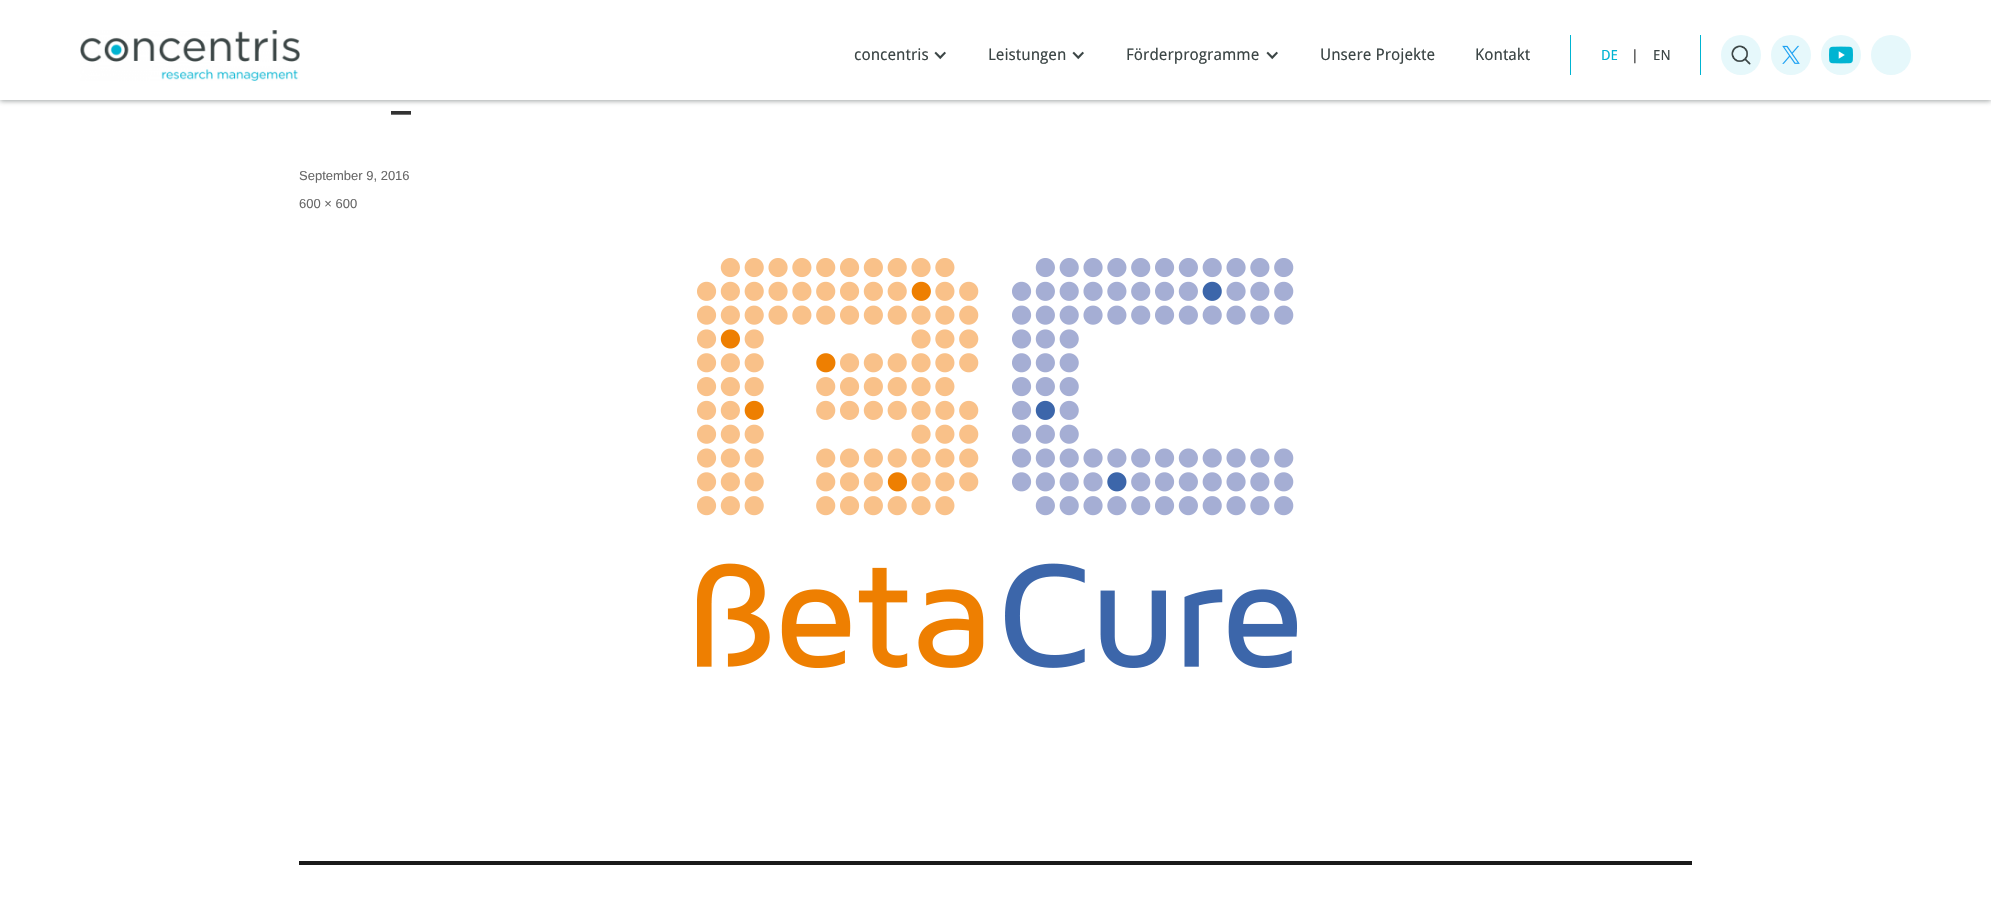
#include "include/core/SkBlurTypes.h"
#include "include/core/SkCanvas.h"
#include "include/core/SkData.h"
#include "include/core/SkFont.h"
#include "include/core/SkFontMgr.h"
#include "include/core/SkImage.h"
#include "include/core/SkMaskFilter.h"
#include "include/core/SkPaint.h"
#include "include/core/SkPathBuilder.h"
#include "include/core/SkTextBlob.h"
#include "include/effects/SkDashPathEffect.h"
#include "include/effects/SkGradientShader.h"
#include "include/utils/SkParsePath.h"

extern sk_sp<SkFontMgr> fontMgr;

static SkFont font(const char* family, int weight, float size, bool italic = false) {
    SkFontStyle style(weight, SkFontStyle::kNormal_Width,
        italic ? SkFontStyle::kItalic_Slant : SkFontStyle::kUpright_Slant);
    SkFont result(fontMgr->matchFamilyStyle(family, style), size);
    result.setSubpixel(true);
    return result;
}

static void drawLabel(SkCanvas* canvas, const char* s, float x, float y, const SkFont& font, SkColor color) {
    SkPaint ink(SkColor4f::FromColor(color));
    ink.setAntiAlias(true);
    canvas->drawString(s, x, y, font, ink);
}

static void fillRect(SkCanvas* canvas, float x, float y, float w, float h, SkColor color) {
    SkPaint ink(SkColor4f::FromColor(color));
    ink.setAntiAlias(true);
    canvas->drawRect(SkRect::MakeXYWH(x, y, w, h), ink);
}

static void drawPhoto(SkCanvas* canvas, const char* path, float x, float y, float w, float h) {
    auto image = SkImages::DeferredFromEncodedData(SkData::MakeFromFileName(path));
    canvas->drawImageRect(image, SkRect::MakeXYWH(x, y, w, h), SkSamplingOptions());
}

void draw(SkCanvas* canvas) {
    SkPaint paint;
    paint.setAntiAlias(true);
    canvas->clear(0xFFFFFFFF);
    paint.setColor(0x803C4646);
    paint.setMaskFilter(SkMaskFilter::MakeBlur(kNormal_SkBlurStyle, 2.5f));
    canvas->drawRect(SkRect::MakeXYWH(0, 1, 1991, 100), paint);
    paint.setMaskFilter(nullptr);
    fillRect(canvas, 0, 0, 1991, 100, 0xFFFFFFFF);
    drawPhoto(canvas, "assets/img1.png", 80, 30, 220, 51);
    SkFont font1 = font("Droid Sans", 400, 16);
    drawLabel(canvas, "concentris", 854, 60, font1, 0xFF3C4646);
    drawPhoto(canvas, "assets/img2.png", 934, 51, 12, 9);
    drawLabel(canvas, "Leistungen", 988, 60, font1, 0xFF3C4646);
    drawPhoto(canvas, "assets/img2.png", 1072, 51, 12, 9);
    drawLabel(canvas, "Förderprogramme", 1126, 60, font1, 0xFF3C4646);
    drawPhoto(canvas, "assets/img2.png", 1266, 51, 12, 9);
    drawLabel(canvas, "Unsere Projekte", 1320, 60, font1, 0xFF3C4646);
    drawLabel(canvas, "Kontakt", 1475, 60, font1, 0xFF3C4646);
    fillRect(canvas, 1700, 35, 1, 40, 0xFF00B4D2);
    fillRect(canvas, 1570, 35, 1, 40, 0xFF00B4D2);
    SkFont font2 = font("Droid Sans", 400, 14);
    drawLabel(canvas, "DE", 1601, 60, font2, 0xFF00B4D2);
    drawLabel(canvas, "|", 1631, 60, font2, 0xFF333333);
    drawLabel(canvas, "EN", 1653, 60, font2, 0xFF3C4646);
    paint.setColor(0xFFE6F8FB);
    canvas->drawCircle(1741, 55, 20, paint);
    drawPhoto(canvas, "assets/img3.png", 1731, 45, 20, 20);
    canvas->drawCircle(1791, 55, 20, paint);
    drawPhoto(canvas, "assets/img4.png", 1782, 45, 18, 19);
    canvas->drawCircle(1841, 55, 20, paint);
    drawPhoto(canvas, "assets/img5.png", 1829, 46, 24, 18);
    canvas->drawCircle(1891, 55, 20, paint);
    SkFont font3 = font("Montserrat", 100, 40);
    drawLabel(canvas, "_", 391, 111, font3, 0xFF333333);
    SkFont font4 = font("Liberation Sans", 400, 13);
    drawLabel(canvas, "September 9, 2016", 299, 180, font4, 0xFF686868);
    drawLabel(canvas, "600 × 600", 299, 208, font4, 0xFF686868);
    drawPhoto(canvas, "assets/img6.png", 697, 258, 600, 410);
    fillRect(canvas, 299, 861, 1393, 4, 0xFF1A1A1A);
}
